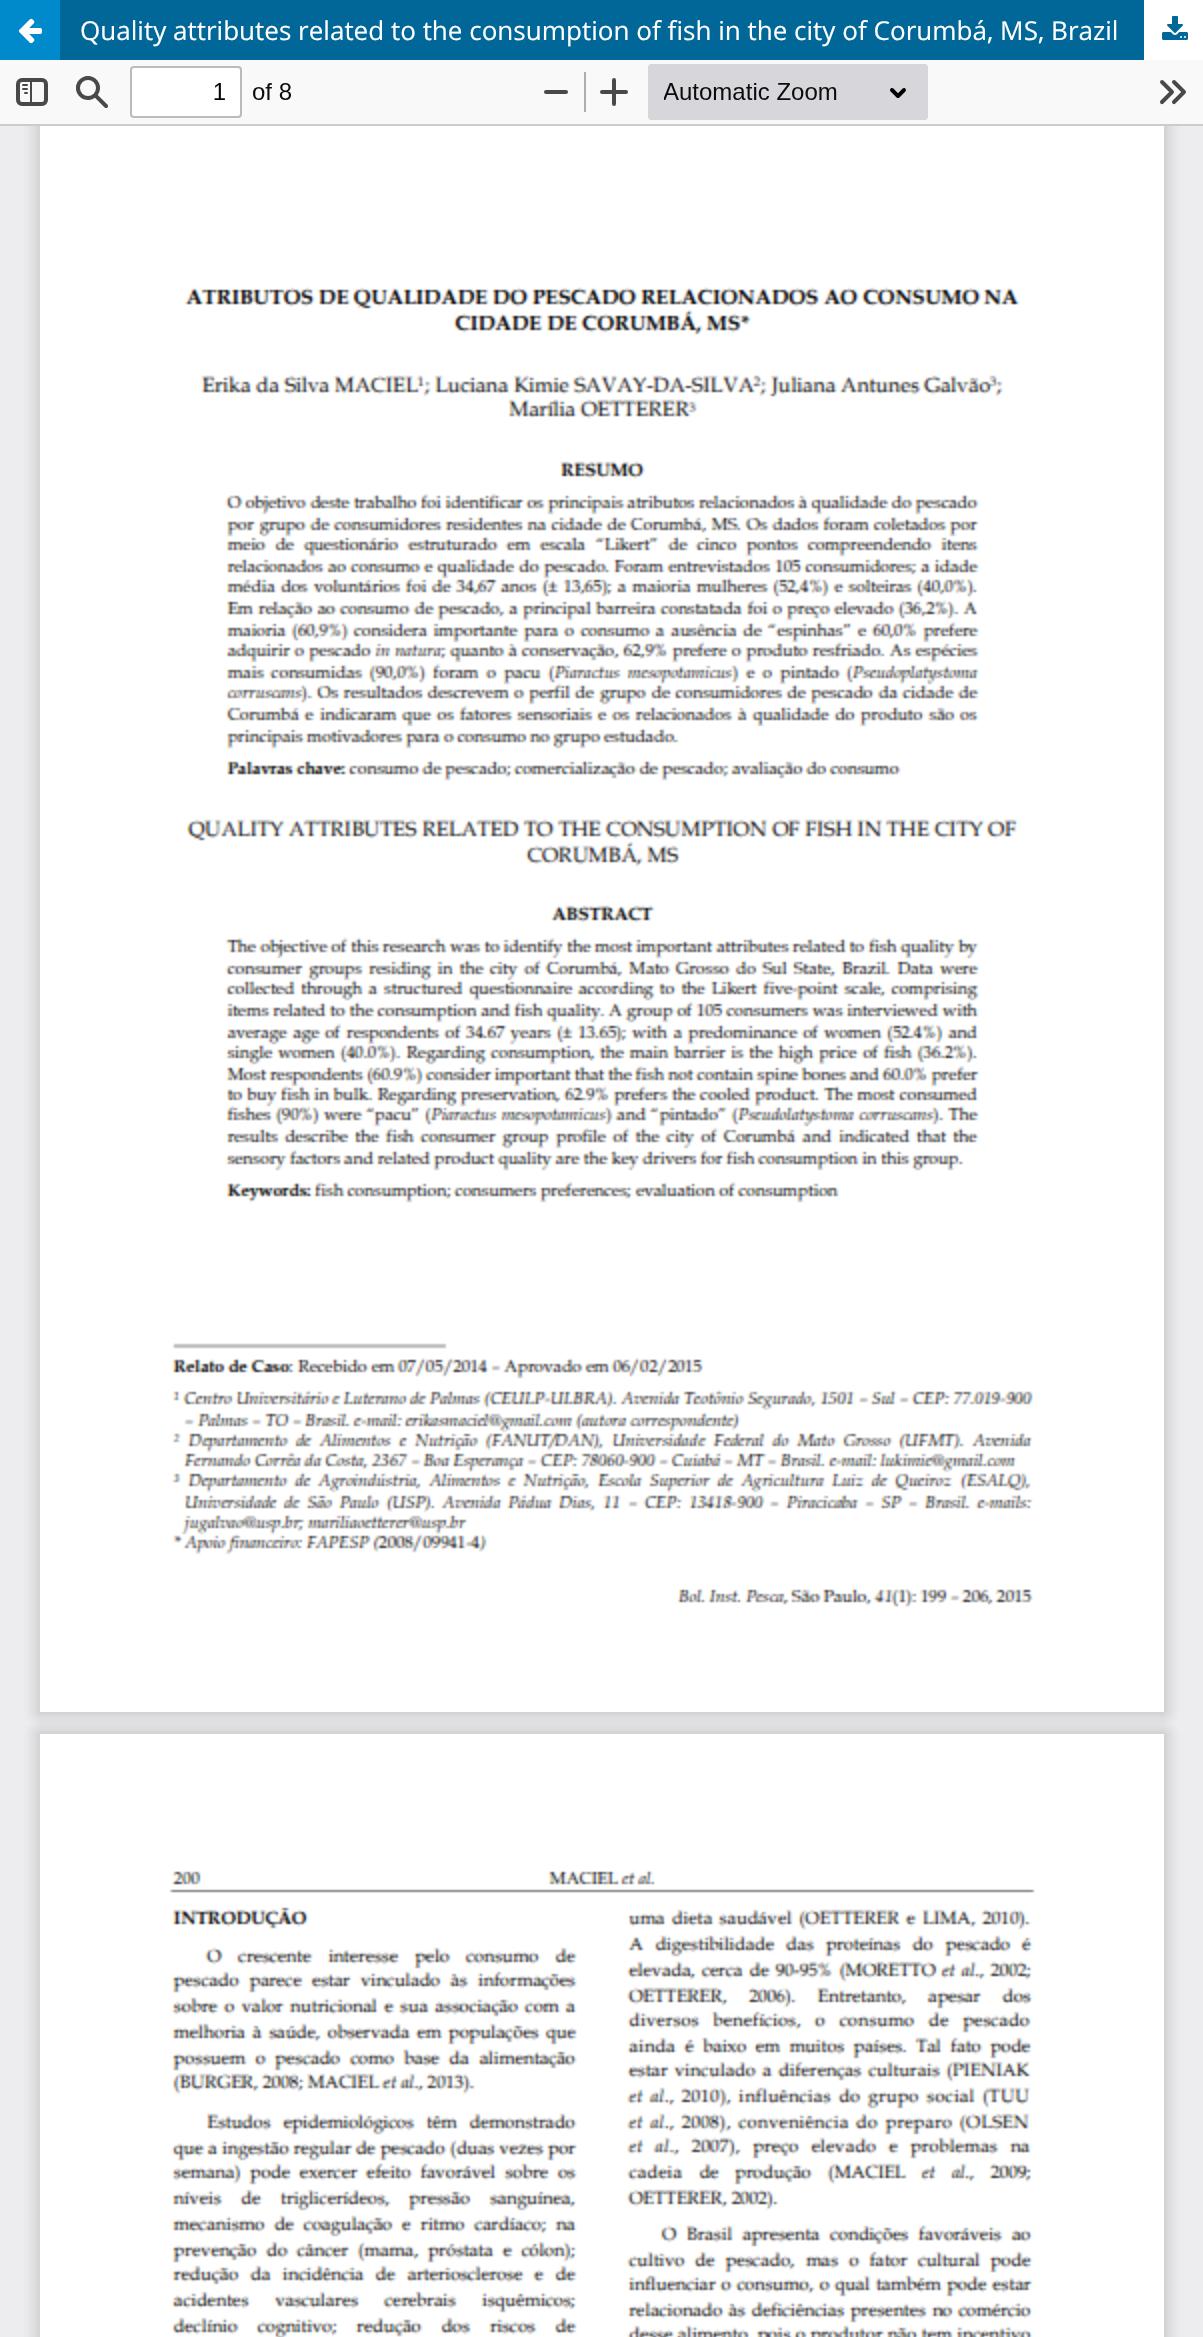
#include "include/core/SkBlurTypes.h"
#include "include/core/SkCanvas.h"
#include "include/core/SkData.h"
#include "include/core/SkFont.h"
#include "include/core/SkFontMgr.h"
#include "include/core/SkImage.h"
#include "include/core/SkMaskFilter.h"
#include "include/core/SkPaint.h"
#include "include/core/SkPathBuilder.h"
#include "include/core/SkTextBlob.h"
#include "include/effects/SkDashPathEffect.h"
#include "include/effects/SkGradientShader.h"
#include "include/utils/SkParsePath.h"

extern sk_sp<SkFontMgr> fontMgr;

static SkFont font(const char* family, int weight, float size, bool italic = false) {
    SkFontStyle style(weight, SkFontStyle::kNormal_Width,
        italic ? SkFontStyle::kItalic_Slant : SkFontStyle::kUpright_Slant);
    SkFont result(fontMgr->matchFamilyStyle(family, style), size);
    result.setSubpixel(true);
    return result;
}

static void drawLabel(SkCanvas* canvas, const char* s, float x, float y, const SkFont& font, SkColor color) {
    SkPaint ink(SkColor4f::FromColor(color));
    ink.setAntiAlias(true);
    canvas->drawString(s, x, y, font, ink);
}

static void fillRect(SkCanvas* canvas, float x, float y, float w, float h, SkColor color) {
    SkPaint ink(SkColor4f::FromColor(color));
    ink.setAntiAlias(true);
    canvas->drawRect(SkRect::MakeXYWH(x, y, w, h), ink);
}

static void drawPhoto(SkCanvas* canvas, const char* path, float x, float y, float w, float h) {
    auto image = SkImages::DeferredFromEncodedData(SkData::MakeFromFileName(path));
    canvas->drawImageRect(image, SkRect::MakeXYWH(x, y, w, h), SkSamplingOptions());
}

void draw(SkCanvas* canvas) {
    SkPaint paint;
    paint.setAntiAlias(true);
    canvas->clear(0xFFFFFFFF);
    fillRect(canvas, 60, 0, 1084, 60, 0xFF006798);
    fillRect(canvas, 0, 0, 60, 60, 0xFF008ACB);
    drawPhoto(canvas, "assets/img1.png", 19, 18, 23, 26);
    SkFont font1 = font("Open Sans", 400, 26.05f);
    drawLabel(canvas, "Quality attributes related to the consumption of fish in the city of Corumbá, MS, Brazil", 80, 40, font1, 0xFFFFFFFF);
    drawPhoto(canvas, "assets/img2.png", 1162, 16, 26, 24);
    drawPhoto(canvas, "assets/img3.png", 0, 60, 1203, 2277);
}
